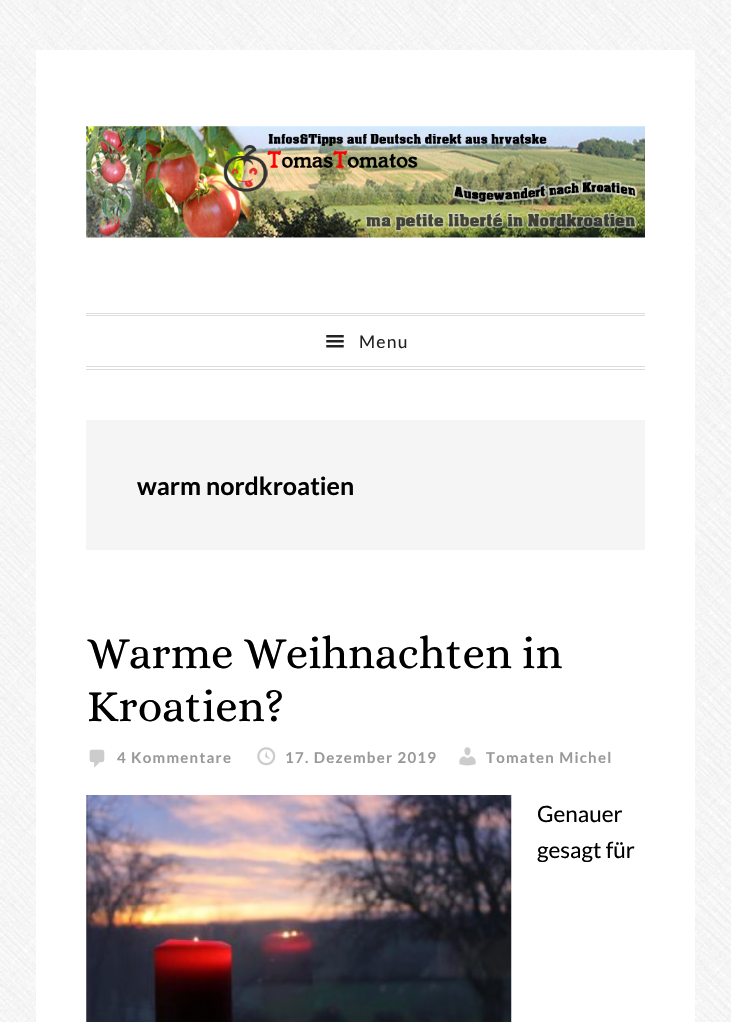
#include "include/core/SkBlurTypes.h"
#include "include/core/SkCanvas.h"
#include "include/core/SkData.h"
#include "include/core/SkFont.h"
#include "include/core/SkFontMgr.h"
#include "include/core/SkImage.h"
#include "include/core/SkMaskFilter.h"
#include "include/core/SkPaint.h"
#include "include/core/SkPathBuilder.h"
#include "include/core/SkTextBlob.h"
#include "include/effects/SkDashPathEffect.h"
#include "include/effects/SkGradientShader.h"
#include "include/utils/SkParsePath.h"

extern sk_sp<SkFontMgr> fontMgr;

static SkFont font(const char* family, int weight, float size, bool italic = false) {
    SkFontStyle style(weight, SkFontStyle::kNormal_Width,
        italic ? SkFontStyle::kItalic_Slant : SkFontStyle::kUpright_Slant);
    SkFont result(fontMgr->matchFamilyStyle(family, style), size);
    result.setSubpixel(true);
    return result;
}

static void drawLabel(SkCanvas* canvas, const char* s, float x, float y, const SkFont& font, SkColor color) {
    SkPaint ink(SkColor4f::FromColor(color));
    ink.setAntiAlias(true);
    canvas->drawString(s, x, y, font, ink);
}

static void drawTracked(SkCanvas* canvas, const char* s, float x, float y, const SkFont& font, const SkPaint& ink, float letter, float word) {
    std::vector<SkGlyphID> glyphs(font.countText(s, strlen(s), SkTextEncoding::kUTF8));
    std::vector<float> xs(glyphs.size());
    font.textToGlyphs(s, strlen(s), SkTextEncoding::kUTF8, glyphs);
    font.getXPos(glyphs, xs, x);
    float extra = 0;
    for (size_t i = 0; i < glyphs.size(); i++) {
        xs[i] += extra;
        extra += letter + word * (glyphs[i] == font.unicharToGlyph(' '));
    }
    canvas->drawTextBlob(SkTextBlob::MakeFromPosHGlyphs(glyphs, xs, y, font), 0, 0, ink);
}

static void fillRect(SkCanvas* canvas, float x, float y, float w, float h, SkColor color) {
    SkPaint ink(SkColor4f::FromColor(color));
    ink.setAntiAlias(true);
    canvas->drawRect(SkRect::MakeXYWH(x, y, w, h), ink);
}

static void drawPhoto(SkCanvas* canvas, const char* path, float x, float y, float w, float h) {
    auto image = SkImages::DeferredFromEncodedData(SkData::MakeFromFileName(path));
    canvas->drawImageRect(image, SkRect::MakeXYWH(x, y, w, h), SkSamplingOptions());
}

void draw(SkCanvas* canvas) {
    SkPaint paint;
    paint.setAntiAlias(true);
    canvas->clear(0xFFFFFFFF);
    drawPhoto(canvas, "assets/img1.png", 0, 0, 731, 1022);
    fillRect(canvas, 36, 50, 659, 972, 0xFFFFFFFF);
    drawPhoto(canvas, "assets/img2.png", 86, 126, 559, 112);
    fillRect(canvas, 86, 313, 559, 1, 0xFFDDDDDD);
    fillRect(canvas, 86, 315, 559, 1, 0xFFDDDDDD);
    fillRect(canvas, 86, 366, 559, 1, 0xFFDDDDDD);
    fillRect(canvas, 86, 369, 559, 1, 0xFFDDDDDD);
    drawPhoto(canvas, "assets/img3.png", 326, 335, 18, 13);
    SkFont font1 = font("Lato", 400, 17.5f);
    paint.setColor(0xFF222222);
    drawTracked(canvas, "Menu", 359, 348, font1, paint, 1.25f, 0);
    fillRect(canvas, 86, 420, 559, 130, 0xFFF5F5F5);
    SkFont font2 = font("Lato", 700, 25);
    drawLabel(canvas, "warm nordkroatien", 137, 495, font2, 0xFF000000);
    SkFont font3 = font("Alice", 400, 45);
    drawLabel(canvas, "Warme Weihnachten in", 87, 668, font3, 0xFF000000);
    drawLabel(canvas, "Kroatien?", 87, 721, font3, 0xFF000000);
    drawPhoto(canvas, "assets/img4.png", 89, 749, 16, 19);
    SkFont font4 = font("Lato", 700, 15);
    paint.setColor(0xFF999999);
    drawTracked(canvas, "4 Kommentare", 117, 763, font4, paint, 1.25f, 0);
    drawPhoto(canvas, "assets/img5.png", 257, 747, 19, 19);
    drawTracked(canvas, "17. Dezember 2019", 285, 763, font4, paint, 1.25f, 0);
    drawPhoto(canvas, "assets/img6.png", 459, 747, 17, 19);
    drawTracked(canvas, "Tomaten Michel", 486, 763, font4, paint, 1.25f, 0);
    drawPhoto(canvas, "assets/img7.png", 86, 795, 426, 227);
    SkFont font5 = font("Lato", 400, 22.5f);
    drawLabel(canvas, "Genauer", 537, 822, font5, 0xFF000000);
    drawLabel(canvas, "gesagt für", 537, 858, font5, 0xFF000000);
}
